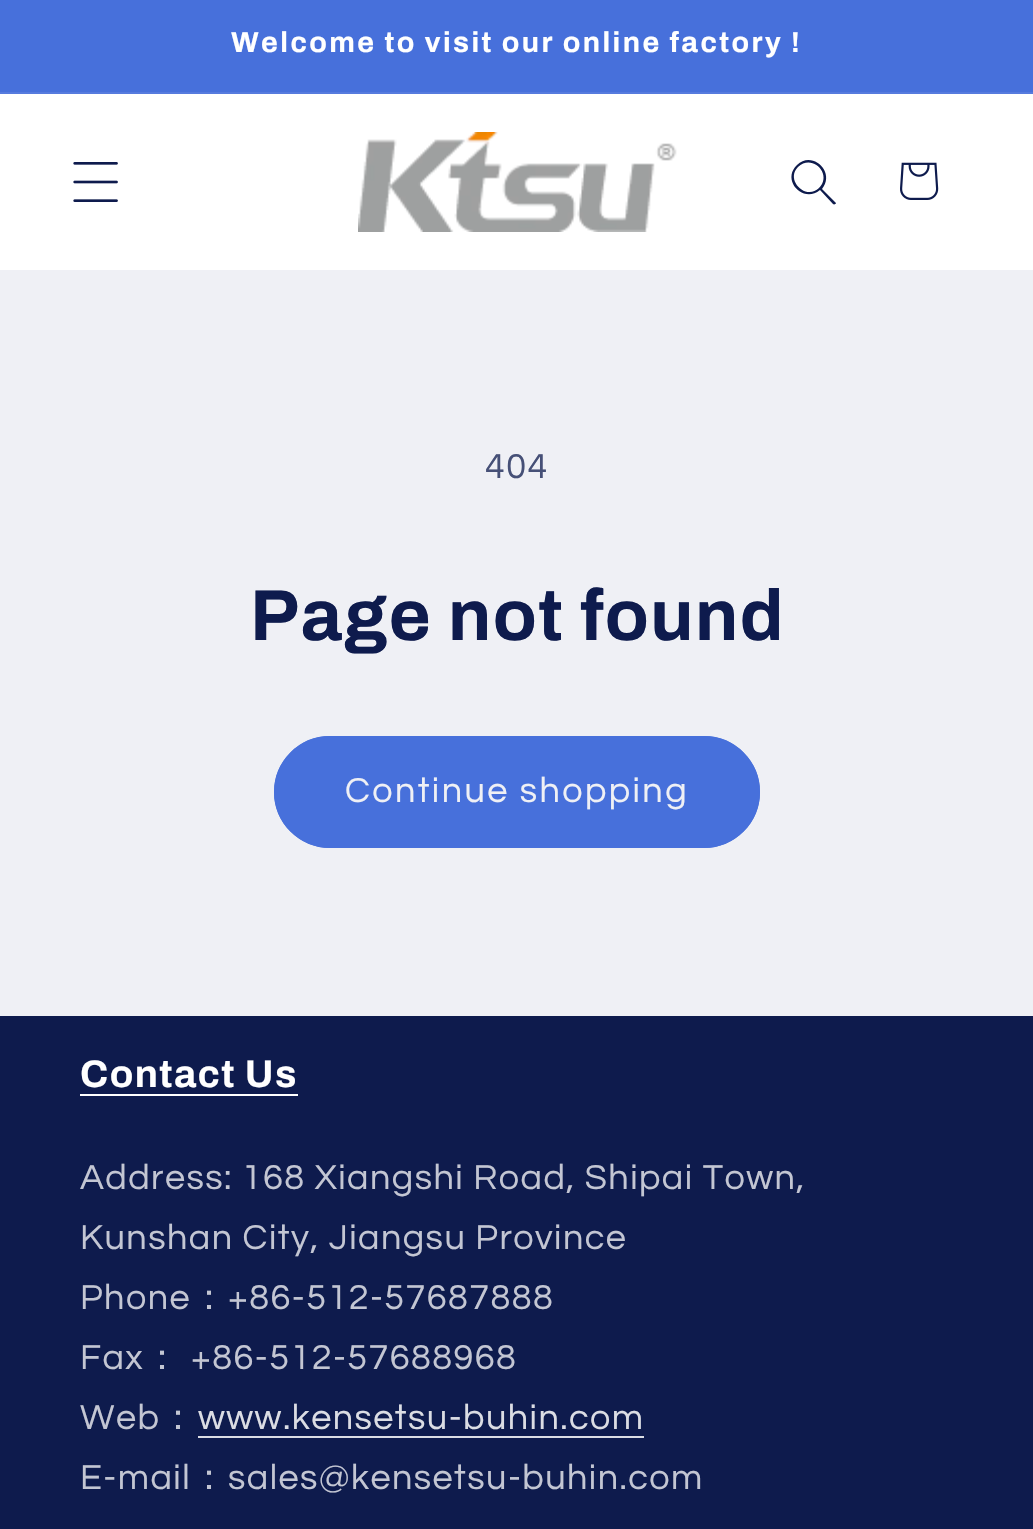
#include "include/core/SkBlurTypes.h"
#include "include/core/SkCanvas.h"
#include "include/core/SkData.h"
#include "include/core/SkFont.h"
#include "include/core/SkFontMgr.h"
#include "include/core/SkImage.h"
#include "include/core/SkMaskFilter.h"
#include "include/core/SkPaint.h"
#include "include/core/SkPathBuilder.h"
#include "include/core/SkTextBlob.h"
#include "include/effects/SkDashPathEffect.h"
#include "include/effects/SkGradientShader.h"
#include "include/utils/SkParsePath.h"

extern sk_sp<SkFontMgr> fontMgr;

static SkFont font(const char* family, int weight, float size, bool italic = false) {
    SkFontStyle style(weight, SkFontStyle::kNormal_Width,
        italic ? SkFontStyle::kItalic_Slant : SkFontStyle::kUpright_Slant);
    SkFont result(fontMgr->matchFamilyStyle(family, style), size);
    result.setSubpixel(true);
    return result;
}

static void drawTracked(SkCanvas* canvas, const char* s, float x, float y, const SkFont& font, const SkPaint& ink, float letter, float word) {
    std::vector<SkGlyphID> glyphs(font.countText(s, strlen(s), SkTextEncoding::kUTF8));
    std::vector<float> xs(glyphs.size());
    font.textToGlyphs(s, strlen(s), SkTextEncoding::kUTF8, glyphs);
    font.getXPos(glyphs, xs, x);
    float extra = 0;
    for (size_t i = 0; i < glyphs.size(); i++) {
        xs[i] += extra;
        extra += letter + word * (glyphs[i] == font.unicharToGlyph(' '));
    }
    canvas->drawTextBlob(SkTextBlob::MakeFromPosHGlyphs(glyphs, xs, y, font), 0, 0, ink);
}

static void fillRect(SkCanvas* canvas, float x, float y, float w, float h, SkColor color) {
    SkPaint ink(SkColor4f::FromColor(color));
    ink.setAntiAlias(true);
    canvas->drawRect(SkRect::MakeXYWH(x, y, w, h), ink);
}

static void fillRRect(SkCanvas* canvas, float x, float y, float w, float h, float radius, SkColor color) {
    SkPaint ink(SkColor4f::FromColor(color));
    ink.setAntiAlias(true);
    canvas->drawRoundRect(SkRect::MakeXYWH(x, y, w, h), radius, radius, ink);
}

static void drawPhoto(SkCanvas* canvas, const char* path, float x, float y, float w, float h) {
    auto image = SkImages::DeferredFromEncodedData(SkData::MakeFromFileName(path));
    canvas->drawImageRect(image, SkRect::MakeXYWH(x, y, w, h), SkSamplingOptions());
}

static SkPath parsePath(const char* data, bool evenOdd = false) {
    SkPath result = *SkParsePath::FromSVGString(data);
    if (evenOdd) result.setFillType(SkPathFillType::kEvenOdd);
    return result;
}

void draw(SkCanvas* canvas) {
    SkPaint paint;
    paint.setAntiAlias(true);
    canvas->clear(0xFFEFF0F5);
    fillRect(canvas, 0, 0, 1033, 92, 0xFF4770DB);
    fillRect(canvas, 0, 92, 1033, 2, 0xFF567BDE);
    SkFont font1 = font("Archivo", 700, 28.75f);
    paint.setColor(0xFFFFFFFF);
    drawTracked(canvas, "Welcome to visit our online factory !", 231, 52, font1, paint, 2.4f, 0);
    fillRect(canvas, 0, 94, 1033, 176, 0xFFFFFFFF);
    drawPhoto(canvas, "assets/img1.png", 73, 162, 45, 40);
    drawPhoto(canvas, "assets/img2.png", 358, 132, 319, 100);
    paint.setColor(0xFF0E1B4D);
    canvas->drawPath(parsePath("M819 188C806 201 785 180 798 167C812 153 833 174 819 188M820 190C803 204 781 180 797 165C812 150 836 172 822 189L836 203C836 204 834 205 833 204Z", true), paint);
    drawPhoto(canvas, "assets/img3.png", 900, 162, 39, 38);
    SkFont font2 = font("Questrial", 400, 36);
    paint.setColor(0xFF465077);
    drawTracked(canvas, "404", 485, 478, font2, paint, 1.45f, 0);
    SkFont font3 = font("Archivo", 700, 72);
    paint.setColor(0xFF0E1B4D);
    drawTracked(canvas, "Page not found", 250, 640, font3, paint, 1.45f, 0);
    fillRRect(canvas, 274, 736, 486, 112, 56, 0xFF4770DB);
    paint.setStroke(true);
    paint.setStrokeWidth(2);
    paint.setColor(0xFF4770DB);
    canvas->drawRoundRect(SkRect::MakeXYWH(275, 737, 484, 110), 55, 55, paint);
    paint.setStroke(false);
    paint.setColor(0xFFEFF0F5);
    drawTracked(canvas, "Continue shopping", 345, 802, font2, paint, 2.4f, 0);
    fillRect(canvas, 0, 1016, 1033, 513, 0xFF0E1B4D);
    SkFont font4 = font("Archivo", 700, 38.5f);
    paint.setColor(0xFFFFFFFF);
    drawTracked(canvas, "Contact Us", 80, 1087, font4, paint, 1.45f, 0);
    fillRect(canvas, 80, 1094, 218, 2, 0xFFFFFFFF);
    paint.setColor(0xFFC3C6D3);
    drawTracked(canvas, "Address: 168 Xiangshi Road, Shipai Town,", 80, 1189, font2, paint, 1.45f, 0);
    drawTracked(canvas, "Kunshan City, Jiangsu Province", 80, 1249, font2, paint, 1.45f, 0);
    drawTracked(canvas, "Phone", 80, 1309, font2, paint, 1.45f, 0);
    SkFont font5 = font("WenQuanYi Zen Hei", 500, 36);
    drawTracked(canvas, "：", 191, 1309, font5, paint, 1.45f, 0);
    drawTracked(canvas, "+86-512-57687888", 228, 1309, font2, paint, 1.45f, 0);
    drawTracked(canvas, "Fax", 80, 1369, font2, paint, 1.45f, 0);
    drawTracked(canvas, "：", 144, 1369, font5, paint, 1.45f, 0);
    drawTracked(canvas, "+86-512-57688968", 191, 1369, font2, paint, 1.45f, 0);
    drawTracked(canvas, "Web", 80, 1429, font2, paint, 1.45f, 0);
    drawTracked(canvas, "：", 160, 1429, font5, paint, 1.45f, 0);
    paint.setColor(0xFFDBDDE4);
    drawTracked(canvas, "www.kensetsu-buhin.com", 198, 1429, font2, paint, 1.45f, 0);
    fillRect(canvas, 198, 1436, 446, 2, 0xFFDBDDE4);
    paint.setColor(0xFFC3C6D3);
    drawTracked(canvas, "E-mail", 80, 1489, font2, paint, 1.45f, 0);
    drawTracked(canvas, "：", 191, 1489, font5, paint, 1.45f, 0);
    drawTracked(canvas, "sales@kensetsu-buhin.com", 228, 1489, font2, paint, 1.45f, 0);
}
